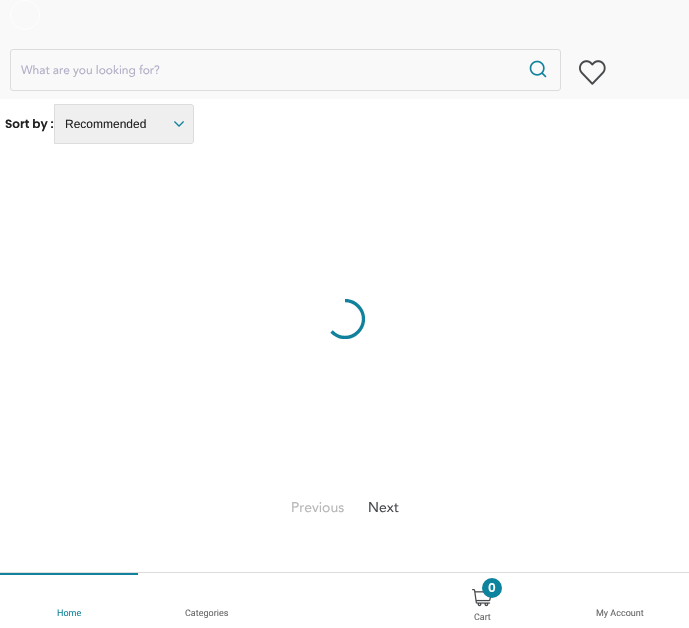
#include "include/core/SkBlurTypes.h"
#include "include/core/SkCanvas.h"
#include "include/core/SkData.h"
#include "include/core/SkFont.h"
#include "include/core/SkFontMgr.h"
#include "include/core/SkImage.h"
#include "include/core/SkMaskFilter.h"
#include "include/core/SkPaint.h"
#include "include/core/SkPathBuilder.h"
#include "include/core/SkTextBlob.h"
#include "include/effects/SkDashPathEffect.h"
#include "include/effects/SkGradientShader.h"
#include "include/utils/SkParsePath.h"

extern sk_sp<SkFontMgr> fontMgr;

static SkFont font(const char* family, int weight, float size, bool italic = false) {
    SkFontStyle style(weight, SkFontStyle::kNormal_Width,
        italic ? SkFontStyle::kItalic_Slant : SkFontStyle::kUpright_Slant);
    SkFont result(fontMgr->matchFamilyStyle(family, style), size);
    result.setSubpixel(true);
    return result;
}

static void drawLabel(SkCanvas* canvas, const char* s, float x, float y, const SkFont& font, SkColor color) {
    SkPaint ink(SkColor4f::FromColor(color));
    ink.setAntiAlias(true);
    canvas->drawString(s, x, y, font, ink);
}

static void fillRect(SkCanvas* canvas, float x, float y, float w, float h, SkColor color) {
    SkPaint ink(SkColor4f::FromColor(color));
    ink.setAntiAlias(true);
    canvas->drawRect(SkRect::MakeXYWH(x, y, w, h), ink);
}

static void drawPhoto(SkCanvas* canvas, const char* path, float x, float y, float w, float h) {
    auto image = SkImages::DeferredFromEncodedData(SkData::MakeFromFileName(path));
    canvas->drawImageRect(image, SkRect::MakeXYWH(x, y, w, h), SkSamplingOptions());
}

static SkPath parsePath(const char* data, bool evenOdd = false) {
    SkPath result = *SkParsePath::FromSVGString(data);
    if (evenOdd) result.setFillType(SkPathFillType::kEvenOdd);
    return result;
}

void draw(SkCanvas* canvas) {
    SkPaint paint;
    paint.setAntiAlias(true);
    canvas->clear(0xFFF9F9FA);
    paint.setStroke(true);
    paint.setStrokeWidth(1);
    paint.setColor(0xFFFFFFFF);
    canvas->drawCircle(25, 15, 14.5f, paint);
    paint.setColor(0xFFDCDCDD);
    canvas->drawRoundRect(SkRect::MakeXYWH(10.5f, 49.5f, 550, 41), 2.5f, 2.5f, paint);
    SkFont font1 = font("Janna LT", 400, 12);
    drawLabel(canvas, "What are you looking for?", 21, 74, font1, 0xFFB0AFC6);
    drawPhoto(canvas, "assets/img1.png", 529, 60, 18, 18);
    drawPhoto(canvas, "assets/img2.png", 579, 60, 27, 25);
    fillRect(canvas, 0, 99, 689, 473, 0xFFFFFFFF);
    SkFont font2 = font("Poppins", 600, 12);
    drawLabel(canvas, "Sort by :", 5, 128, font2, 0xFF222222);
    paint.setStroke(false);
    paint.setColor(0xFFEFEFEF);
    canvas->drawPath(parsePath("M54.5 104.5H191C192.5 104.5 193.5 105.5 193.5 107V141C193.5 142.5 192.5 143.5 191 143.5H54.5Z"), paint);
    paint.setStroke(true);
    paint.setColor(0xFFDCDCDD);
    canvas->drawPath(parsePath("M54.5 104.5H191C192.5 104.5 193.5 105.5 193.5 107V141C193.5 142.5 192.5 143.5 191 143.5H54.5Z"), paint);
    SkFont font3 = font("Liberation Sans", 400, 12);
    drawLabel(canvas, "Recommended", 65, 128, font3, 0xFF222222);
    drawPhoto(canvas, "assets/img3.png", 174, 121, 10, 6);
    canvas->save();
    canvas->clipRect(SkRect::MakeXYWH(325, 299, 40, 40));
    paint.setStrokeWidth(3.3f);
    paint.setColor(0xFF12829C);
    canvas->drawPath(parsePath("M345 300.5C355 300.5 363.5 309 363.5 319C363.5 329 355 337.5 345 337.5C339.5 337.5 335 335 331.5 331.5"), paint);
    canvas->restore();
    SkFont font4 = font("Janna LT", 400, 14);
    drawLabel(canvas, "Previous", 291, 512, font4, 0xFFB5B6B7);
    drawLabel(canvas, "Next", 368, 512, font4, 0xFF46494C);
    fillRect(canvas, 0, 573, 689, 55, 0xFFFFFFFF);
    fillRect(canvas, 0, 572, 689, 1, 0xFFDCDCDD);
    fillRect(canvas, 0, 573, 138, 2, 0xFF13829C);
    SkFont font5 = font("Roboto", 400, 9);
    drawLabel(canvas, "Home", 57, 616, font5, 0xFF13829C);
    drawLabel(canvas, "Categories", 185, 616, font5, 0xFF666666);
    drawPhoto(canvas, "assets/img4.png", 472, 589, 20, 18);
    paint.setStroke(false);
    paint.setColor(0xFF0D839D);
    canvas->drawCircle(492, 588, 10, paint);
    drawLabel(canvas, "0", 488, 592, font2, 0xFFFFFFFF);
    drawLabel(canvas, "Cart", 474, 620, font5, 0xFF666666);
    drawLabel(canvas, "My Account", 596, 616, font5, 0xFF666666);
}
